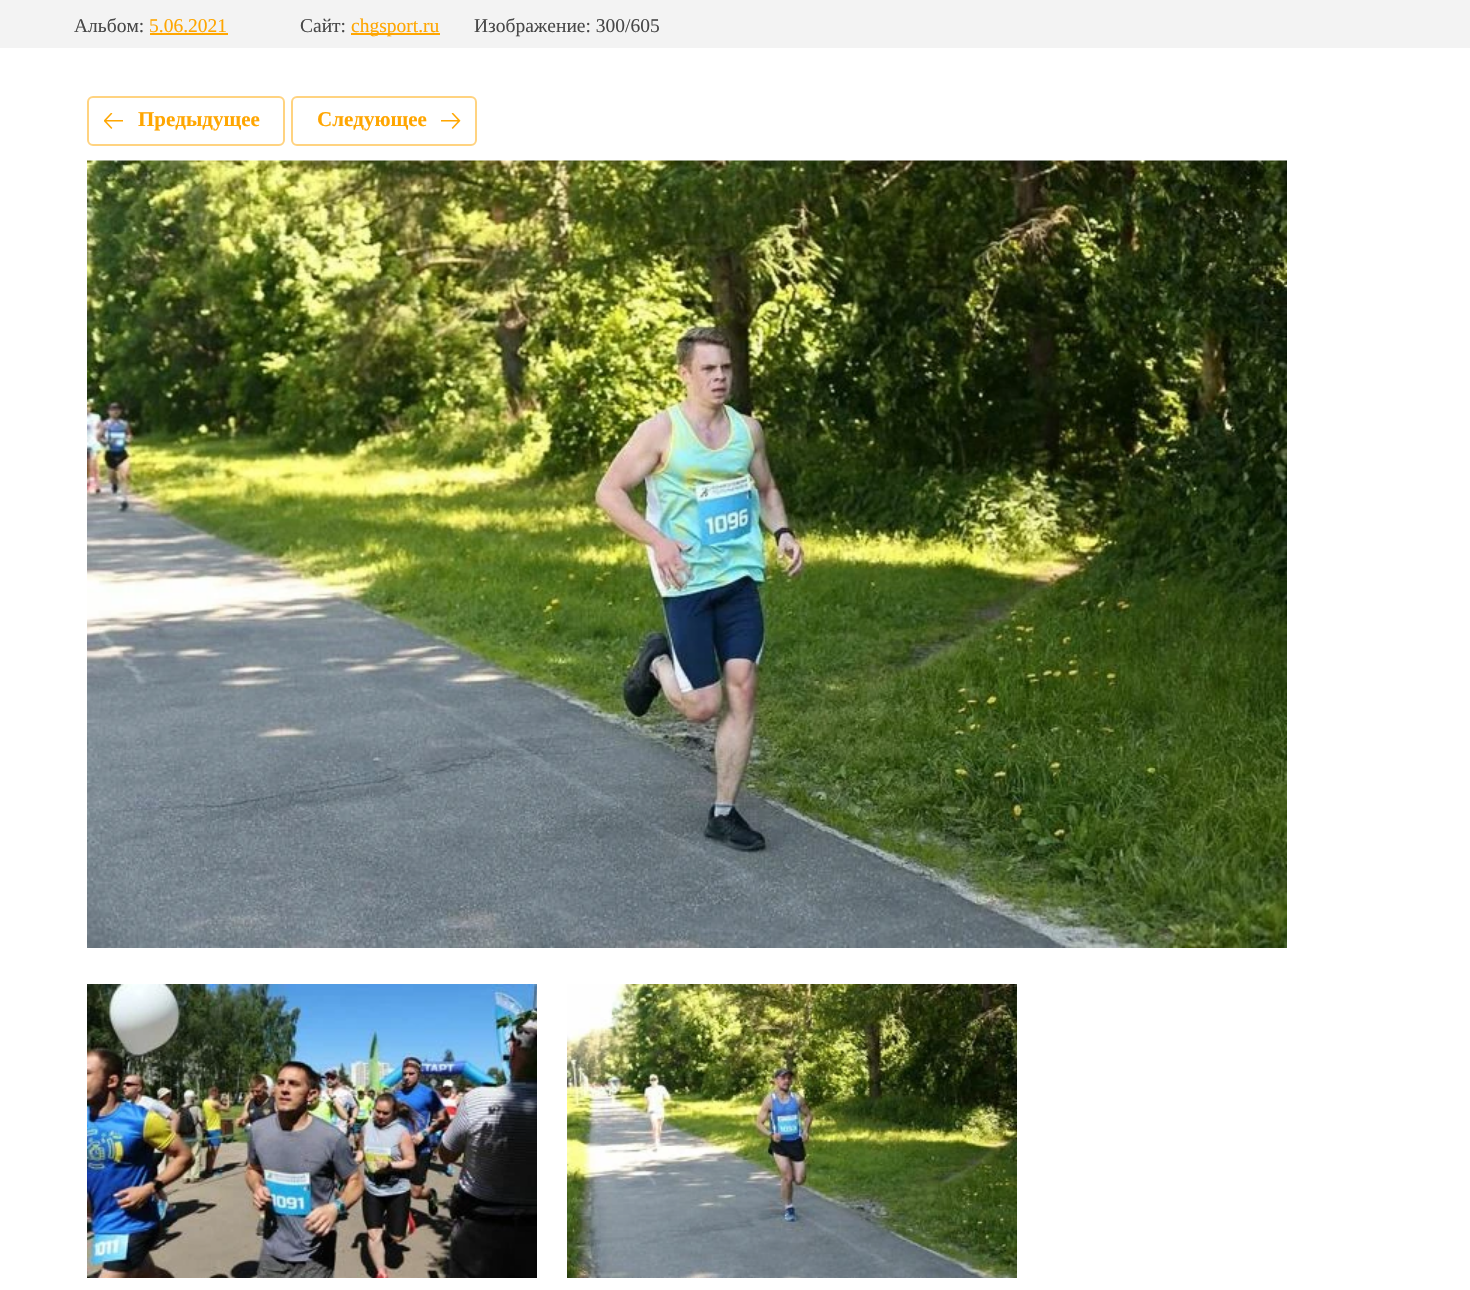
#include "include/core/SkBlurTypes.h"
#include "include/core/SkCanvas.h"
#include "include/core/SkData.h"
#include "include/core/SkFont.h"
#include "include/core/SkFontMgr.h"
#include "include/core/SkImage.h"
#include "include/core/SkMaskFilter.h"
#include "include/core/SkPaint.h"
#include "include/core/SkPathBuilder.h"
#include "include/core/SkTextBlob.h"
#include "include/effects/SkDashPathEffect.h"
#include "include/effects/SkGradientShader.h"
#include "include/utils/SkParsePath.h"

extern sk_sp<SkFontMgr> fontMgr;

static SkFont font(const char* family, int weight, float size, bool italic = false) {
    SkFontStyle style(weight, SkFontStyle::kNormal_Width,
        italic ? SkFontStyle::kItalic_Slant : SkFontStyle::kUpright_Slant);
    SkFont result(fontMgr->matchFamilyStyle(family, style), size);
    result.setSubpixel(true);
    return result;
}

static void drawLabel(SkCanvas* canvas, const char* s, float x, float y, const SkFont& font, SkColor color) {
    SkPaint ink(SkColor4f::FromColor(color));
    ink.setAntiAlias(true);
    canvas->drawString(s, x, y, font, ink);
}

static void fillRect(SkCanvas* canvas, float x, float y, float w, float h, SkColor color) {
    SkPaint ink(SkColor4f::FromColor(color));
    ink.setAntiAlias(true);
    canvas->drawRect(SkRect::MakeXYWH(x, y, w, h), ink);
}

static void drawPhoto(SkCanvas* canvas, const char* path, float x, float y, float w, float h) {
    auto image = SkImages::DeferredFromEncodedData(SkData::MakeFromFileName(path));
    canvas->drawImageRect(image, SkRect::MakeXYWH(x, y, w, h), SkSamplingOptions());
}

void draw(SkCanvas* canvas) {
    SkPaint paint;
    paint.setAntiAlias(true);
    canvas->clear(0xFFFFFFFF);
    fillRect(canvas, 0, 0, 1470, 48, 0xFFF3F3F3);
    SkFont font1 = font("Liberation Serif", 400, 19.5f);
    drawLabel(canvas, "Альбом:", 74, 32, font1, 0xFF484848);
    drawLabel(canvas, "5.06.2021", 149, 32, font1, 0xFFFFA601);
    fillRect(canvas, 150, 33, 78, 2, 0xFFFFA601);
    drawLabel(canvas, "Сайт:", 300, 32, font1, 0xFF484848);
    fillRect(canvas, 351, 33, 89, 2, 0xFFFFA601);
    drawLabel(canvas, "chgsport.ru", 351, 32, font1, 0xFFFFA601);
    drawLabel(canvas, "Изображение: 300/605", 474, 32, font1, 0xFF484848);
    paint.setStroke(true);
    paint.setStrokeWidth(2);
    paint.setColor(0xFFFFD380);
    canvas->drawRoundRect(SkRect::MakeXYWH(88, 97, 196, 48), 5, 5, paint);
    drawPhoto(canvas, "assets/img1.png", 104, 113, 19, 16);
    SkFont font2 = font("Liberation Serif", 700, 21);
    drawLabel(canvas, "Предыдущее", 138, 126, font2, 0xFFFFA601);
    canvas->drawRoundRect(SkRect::MakeXYWH(292, 97, 184, 48), 5, 5, paint);
    drawLabel(canvas, "Следующее", 317, 126, font2, 0xFFFFA601);
    drawPhoto(canvas, "assets/img2.png", 441, 113, 20, 16);
    drawPhoto(canvas, "assets/img3.png", 87, 160, 1200, 788);
    drawPhoto(canvas, "assets/img4.png", 87, 984, 450, 294);
    drawPhoto(canvas, "assets/img5.png", 567, 984, 450, 294);
}
